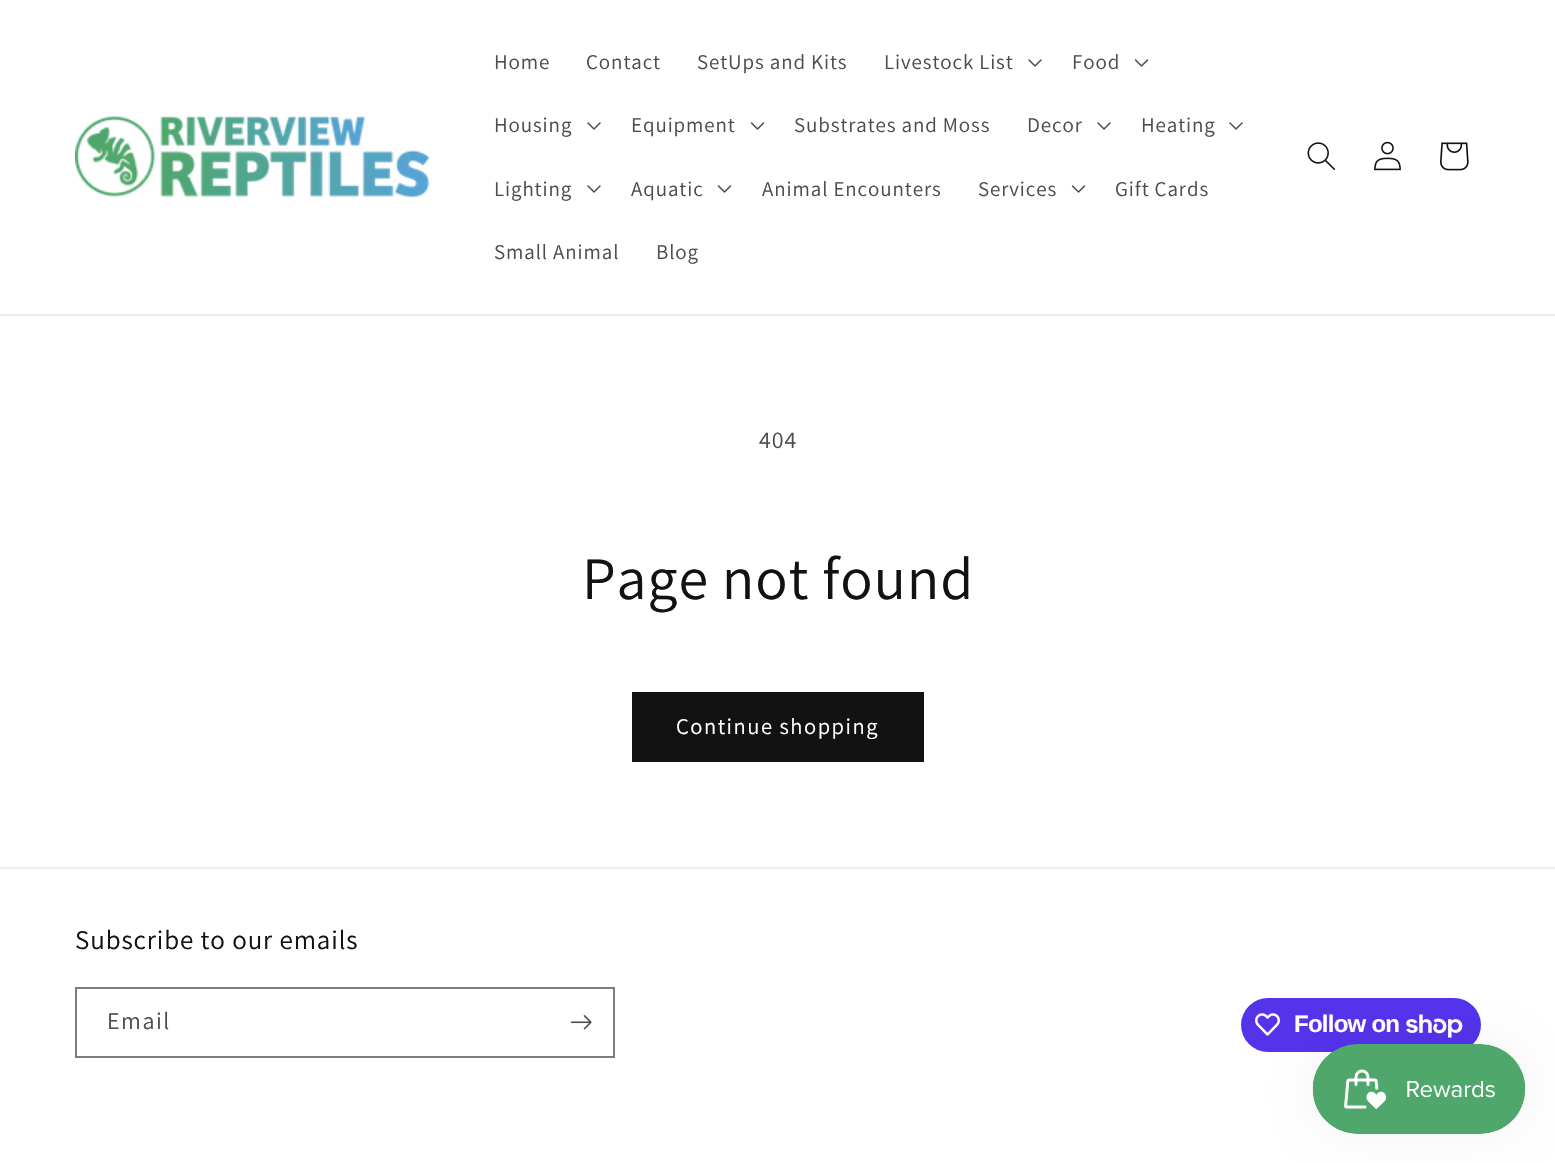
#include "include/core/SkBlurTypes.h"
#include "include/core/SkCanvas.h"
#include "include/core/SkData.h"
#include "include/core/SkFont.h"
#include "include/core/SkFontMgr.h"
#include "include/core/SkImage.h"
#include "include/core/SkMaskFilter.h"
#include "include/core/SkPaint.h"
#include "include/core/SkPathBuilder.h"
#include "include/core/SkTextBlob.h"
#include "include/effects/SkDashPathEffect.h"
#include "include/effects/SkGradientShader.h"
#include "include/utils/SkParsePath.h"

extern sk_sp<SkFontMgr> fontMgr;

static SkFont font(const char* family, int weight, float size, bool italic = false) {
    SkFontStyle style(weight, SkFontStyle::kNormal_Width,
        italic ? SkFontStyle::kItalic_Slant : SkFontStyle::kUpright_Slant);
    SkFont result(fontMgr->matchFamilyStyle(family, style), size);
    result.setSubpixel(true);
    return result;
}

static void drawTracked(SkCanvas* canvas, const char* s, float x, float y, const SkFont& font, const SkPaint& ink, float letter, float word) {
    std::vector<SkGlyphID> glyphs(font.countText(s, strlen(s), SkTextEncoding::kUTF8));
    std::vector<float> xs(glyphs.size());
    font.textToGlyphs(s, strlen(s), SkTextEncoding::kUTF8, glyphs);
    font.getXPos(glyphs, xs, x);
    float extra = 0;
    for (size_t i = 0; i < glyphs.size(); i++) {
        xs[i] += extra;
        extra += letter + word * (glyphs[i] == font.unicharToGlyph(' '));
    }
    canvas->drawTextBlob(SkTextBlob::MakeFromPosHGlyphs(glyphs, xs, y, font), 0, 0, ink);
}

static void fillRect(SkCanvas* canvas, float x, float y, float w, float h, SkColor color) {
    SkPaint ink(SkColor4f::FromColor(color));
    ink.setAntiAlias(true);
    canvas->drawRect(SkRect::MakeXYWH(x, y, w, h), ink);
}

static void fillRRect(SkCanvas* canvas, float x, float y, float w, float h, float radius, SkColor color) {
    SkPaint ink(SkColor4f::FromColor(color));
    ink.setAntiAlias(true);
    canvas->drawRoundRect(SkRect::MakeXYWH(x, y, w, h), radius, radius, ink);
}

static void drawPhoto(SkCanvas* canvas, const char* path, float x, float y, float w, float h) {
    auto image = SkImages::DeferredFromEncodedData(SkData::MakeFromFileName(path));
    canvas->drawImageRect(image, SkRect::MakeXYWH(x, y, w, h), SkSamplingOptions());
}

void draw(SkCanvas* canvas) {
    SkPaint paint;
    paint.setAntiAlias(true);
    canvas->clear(0xFFFFFFFF);
    fillRect(canvas, 0, 314, 1555, 2, 0xFFECECEC);
    drawPhoto(canvas, "assets/img1.png", 75, 115, 355, 83);
    SkFont font1 = font("Assistant", 400, 21);
    paint.setColor(0xFF4D4D4D);
    drawTracked(canvas, "Home", 494, 69, font1, paint, 0.9f, 0);
    drawTracked(canvas, "Contact", 586, 69, font1, paint, 0.9f, 0);
    drawTracked(canvas, "SetUps and Kits", 697, 69, font1, paint, 0.9f, 0);
    drawTracked(canvas, "Livestock List", 884, 69, font1, paint, 0.9f, 0);
    drawPhoto(canvas, "assets/img2.png", 1028, 59, 14, 8);
    drawTracked(canvas, "Food", 1072, 69, font1, paint, 0.9f, 0);
    drawPhoto(canvas, "assets/img3.png", 1134, 59, 15, 8);
    drawTracked(canvas, "Housing", 494, 132, font1, paint, 0.9f, 0);
    drawPhoto(canvas, "assets/img2.png", 587, 122, 14, 8);
    drawTracked(canvas, "Equipment", 631, 132, font1, paint, 0.9f, 0);
    drawPhoto(canvas, "assets/img3.png", 750, 122, 15, 8);
    drawTracked(canvas, "Substrates and Moss", 794, 132, font1, paint, 0.9f, 0);
    drawTracked(canvas, "Decor", 1027, 132, font1, paint, 0.9f, 0);
    drawPhoto(canvas, "assets/img2.png", 1097, 122, 14, 8);
    drawTracked(canvas, "Heating", 1141, 132, font1, paint, 0.9f, 0);
    drawPhoto(canvas, "assets/img2.png", 1229, 122, 14, 8);
    drawTracked(canvas, "Lighting", 494, 196, font1, paint, 0.9f, 0);
    drawPhoto(canvas, "assets/img2.png", 587, 185, 14, 8);
    drawTracked(canvas, "Aquatic", 631, 196, font1, paint, 0.9f, 0);
    drawPhoto(canvas, "assets/img3.png", 717, 185, 15, 8);
    drawTracked(canvas, "Animal Encounters", 762, 196, font1, paint, 0.9f, 0);
    drawTracked(canvas, "Services", 978, 196, font1, paint, 0.9f, 0);
    drawPhoto(canvas, "assets/img3.png", 1071, 185, 15, 8);
    drawTracked(canvas, "Gift Cards", 1115, 196, font1, paint, 0.9f, 0);
    drawTracked(canvas, "Small Animal", 494, 259, font1, paint, 0.9f, 0);
    drawTracked(canvas, "Blog", 656, 259, font1, paint, 0.9f, 0);
    drawPhoto(canvas, "assets/img4.png", 1307, 142, 28, 28);
    drawPhoto(canvas, "assets/img5.png", 1374, 141, 27, 30);
    drawPhoto(canvas, "assets/img6.png", 1440, 142, 29, 29);
    SkFont font2 = font("Assistant", 400, 24);
    drawTracked(canvas, "404", 759, 448, font2, paint, 0.9f, 0);
    SkFont font3 = font("Assistant", 400, 60);
    paint.setColor(0xFF121212);
    drawTracked(canvas, "Page not found", 582, 599, font3, paint, 0.9f, 0);
    fillRect(canvas, 632, 692, 292, 70, 0xFF121212);
    SkFont font4 = font("Assistant", 400, 22.5f);
    paint.setColor(0xFFFFFFFF);
    drawTracked(canvas, "Continue shopping", 676, 734, font4, paint, 1.5f, 0);
    fillRect(canvas, 0, 867, 1555, 2, 0xFFECECEC);
    SkFont font5 = font("Assistant", 400, 27);
    paint.setColor(0xFF121212);
    drawTracked(canvas, "Subscribe to our emails", 75, 949, font5, paint, 0.9f, 0);
    paint.setStroke(true);
    paint.setStrokeWidth(2);
    paint.setColor(0xFF7D7D7D);
    canvas->drawRect(SkRect::MakeXYWH(76, 988, 538, 69), paint);
    paint.setStroke(false);
    paint.setColor(0xFF4D4D4D);
    drawTracked(canvas, "Email", 107, 1029, font2, paint, 1.5f, 0);
    drawPhoto(canvas, "assets/img7.png", 570, 1015, 22, 15);
    fillRRect(canvas, 1241, 998, 240, 54, 27, 0xFF5433EB);
    drawPhoto(canvas, "assets/img8.png", 1255, 1013, 25, 23);
    SkFont font6 = font("Liberation Sans", 700, 24);
    paint.setColor(0xFFFFFFFF);
    drawTracked(canvas, "Follow on", 1294, 1032, font6, paint, -0.75f, 0);
    drawPhoto(canvas, "assets/img9.png", 1406, 1014, 57, 24);
    paint.setColor(0x0D000000);
    paint.setMaskFilter(SkMaskFilter::MakeBlur(kNormal_SkBlurStyle, 19));
    canvas->drawRoundRect(SkRect::MakeXYWH(1313, 1044, 213, 90), 45, 45, paint);
    paint.setMaskFilter(nullptr);
    drawPhoto(canvas, "assets/img10.png", 1312, 1044, 214, 90);
}
